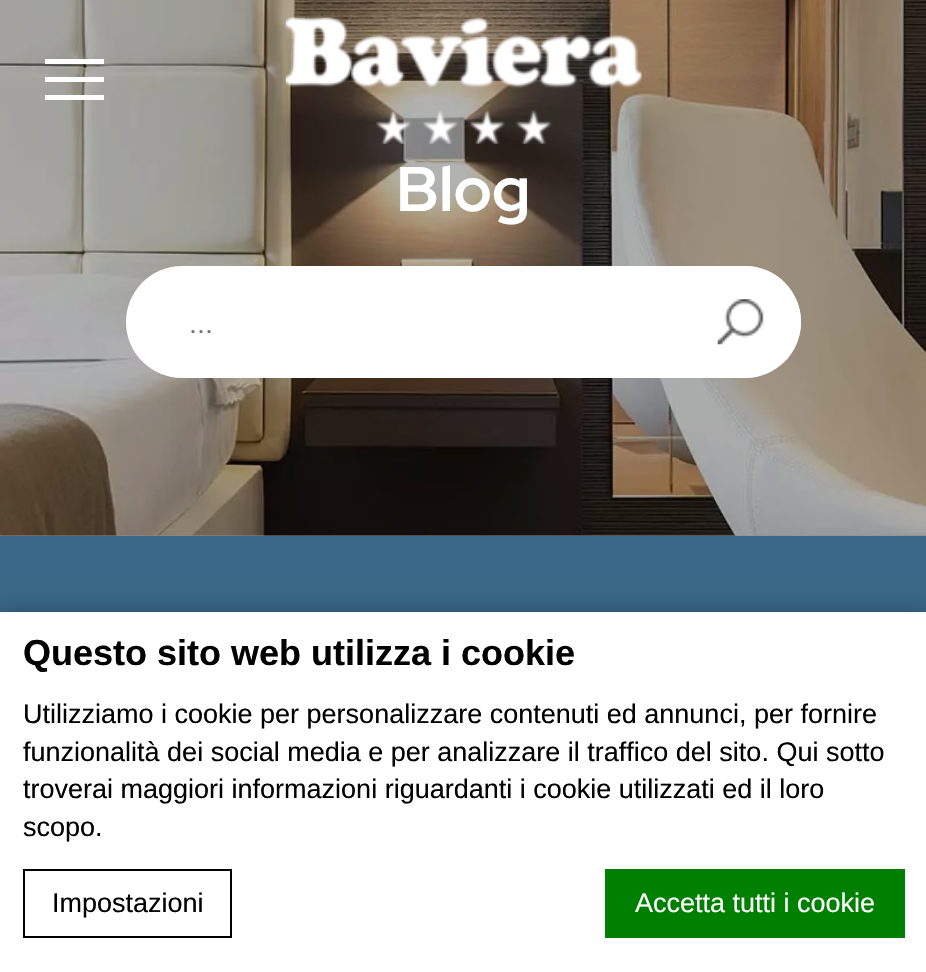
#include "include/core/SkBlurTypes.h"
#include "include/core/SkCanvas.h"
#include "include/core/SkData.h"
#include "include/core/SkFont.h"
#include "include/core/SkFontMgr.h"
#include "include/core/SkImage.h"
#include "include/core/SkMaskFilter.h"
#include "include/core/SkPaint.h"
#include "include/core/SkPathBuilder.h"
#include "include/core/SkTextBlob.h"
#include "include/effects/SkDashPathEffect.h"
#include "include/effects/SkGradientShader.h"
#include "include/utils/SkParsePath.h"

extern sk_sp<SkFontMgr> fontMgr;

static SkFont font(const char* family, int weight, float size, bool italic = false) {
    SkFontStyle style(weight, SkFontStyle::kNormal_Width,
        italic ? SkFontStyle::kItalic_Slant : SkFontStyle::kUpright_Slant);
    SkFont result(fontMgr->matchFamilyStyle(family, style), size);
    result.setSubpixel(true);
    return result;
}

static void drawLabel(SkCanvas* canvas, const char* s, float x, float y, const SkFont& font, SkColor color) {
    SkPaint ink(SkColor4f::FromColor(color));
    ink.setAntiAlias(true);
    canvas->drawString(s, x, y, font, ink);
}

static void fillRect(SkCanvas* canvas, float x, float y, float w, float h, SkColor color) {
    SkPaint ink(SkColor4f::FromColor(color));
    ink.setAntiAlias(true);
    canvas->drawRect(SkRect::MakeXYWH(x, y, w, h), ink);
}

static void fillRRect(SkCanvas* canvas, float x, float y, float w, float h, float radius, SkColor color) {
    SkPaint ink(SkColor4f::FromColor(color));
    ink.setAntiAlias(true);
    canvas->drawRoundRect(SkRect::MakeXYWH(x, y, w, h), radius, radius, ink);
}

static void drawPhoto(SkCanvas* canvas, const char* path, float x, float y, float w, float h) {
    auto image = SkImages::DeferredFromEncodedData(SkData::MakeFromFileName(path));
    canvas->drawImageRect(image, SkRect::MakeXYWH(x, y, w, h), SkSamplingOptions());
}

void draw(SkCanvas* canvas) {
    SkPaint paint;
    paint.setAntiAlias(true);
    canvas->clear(0xFF8F8F8F);
    drawPhoto(canvas, "assets/img2.png", 0, 0, 926, 536);
    fillRect(canvas, 45, 59, 59, 5, 0xFFFFFFFF);
    fillRect(canvas, 45, 95, 59, 5, 0xFFFFFFFF);
    fillRect(canvas, 45, 77, 59, 5, 0xFFFFFFFF);
    drawPhoto(canvas, "assets/img1.png", 285, 17, 357, 127);
    SkFont font1 = font("Red Hat Display", 700, 63);
    drawLabel(canvas, "Blog", 396, 211, font1, 0xFFFFFFFF);
    fillRRect(canvas, 126, 266, 675, 112, 56, 0xFFFFFFFF);
    SkFont font2 = font("Red Hat Display", 400, 32);
    drawLabel(canvas, "...", 189, 333, font2, 0xFF757575);
    paint.setColor(0xB3FFFFFF);
    canvas->drawCircle(745, 322, 56, paint);
    drawPhoto(canvas, "assets/img3.png", 717, 299, 47, 46);
    fillRect(canvas, 0, 536, 926, 76, 0xFF3A6888);
    paint.setColor(0x4D000000);
    paint.setMaskFilter(SkMaskFilter::MakeBlur(kNormal_SkBlurStyle, 11));
    canvas->drawRect(SkRect::MakeXYWH(0, 612, 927, 360), paint);
    paint.setMaskFilter(nullptr);
    fillRect(canvas, 0, 612, 926, 360, 0xFFFFFFFF);
    SkFont font3 = font("Liberation Sans", 700, 36);
    drawLabel(canvas, "Questo sito web utilizza i cookie", 23, 665, font3, 0xFF000000);
    SkFont font4 = font("Liberation Sans", 400, 27);
    drawLabel(canvas, "Utilizziamo i cookie per personalizzare contenuti ed annunci, per fornire", 23, 723, font4, 0xFF000000);
    drawLabel(canvas, "funzionalità dei social media e per analizzare il traffico del sito. Qui sotto", 23, 761, font4, 0xFF000000);
    drawLabel(canvas, "troverai maggiori informazioni riguardanti i cookie utilizzati ed il loro", 23, 798, font4, 0xFF000000);
    drawLabel(canvas, "scopo.", 23, 836, font4, 0xFF000000);
    paint.setStroke(true);
    paint.setStrokeWidth(2);
    paint.setColor(0xFF000000);
    canvas->drawRect(SkRect::MakeXYWH(24, 870, 207, 67), paint);
    drawLabel(canvas, "Impostazioni", 52, 912, font4, 0xFF000000);
    fillRect(canvas, 605, 869, 300, 69, 0xFF008000);
    drawLabel(canvas, "Accetta tutti i cookie", 635, 912, font4, 0xFFFFFFFF);
}
